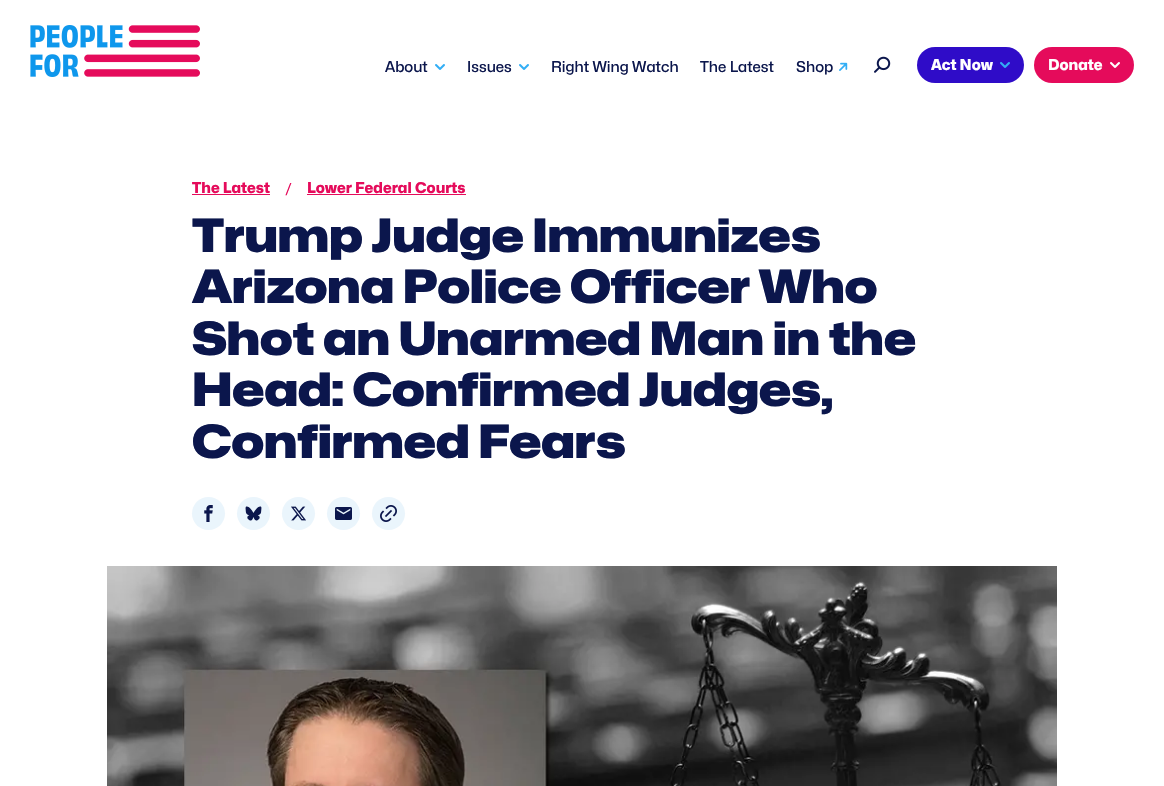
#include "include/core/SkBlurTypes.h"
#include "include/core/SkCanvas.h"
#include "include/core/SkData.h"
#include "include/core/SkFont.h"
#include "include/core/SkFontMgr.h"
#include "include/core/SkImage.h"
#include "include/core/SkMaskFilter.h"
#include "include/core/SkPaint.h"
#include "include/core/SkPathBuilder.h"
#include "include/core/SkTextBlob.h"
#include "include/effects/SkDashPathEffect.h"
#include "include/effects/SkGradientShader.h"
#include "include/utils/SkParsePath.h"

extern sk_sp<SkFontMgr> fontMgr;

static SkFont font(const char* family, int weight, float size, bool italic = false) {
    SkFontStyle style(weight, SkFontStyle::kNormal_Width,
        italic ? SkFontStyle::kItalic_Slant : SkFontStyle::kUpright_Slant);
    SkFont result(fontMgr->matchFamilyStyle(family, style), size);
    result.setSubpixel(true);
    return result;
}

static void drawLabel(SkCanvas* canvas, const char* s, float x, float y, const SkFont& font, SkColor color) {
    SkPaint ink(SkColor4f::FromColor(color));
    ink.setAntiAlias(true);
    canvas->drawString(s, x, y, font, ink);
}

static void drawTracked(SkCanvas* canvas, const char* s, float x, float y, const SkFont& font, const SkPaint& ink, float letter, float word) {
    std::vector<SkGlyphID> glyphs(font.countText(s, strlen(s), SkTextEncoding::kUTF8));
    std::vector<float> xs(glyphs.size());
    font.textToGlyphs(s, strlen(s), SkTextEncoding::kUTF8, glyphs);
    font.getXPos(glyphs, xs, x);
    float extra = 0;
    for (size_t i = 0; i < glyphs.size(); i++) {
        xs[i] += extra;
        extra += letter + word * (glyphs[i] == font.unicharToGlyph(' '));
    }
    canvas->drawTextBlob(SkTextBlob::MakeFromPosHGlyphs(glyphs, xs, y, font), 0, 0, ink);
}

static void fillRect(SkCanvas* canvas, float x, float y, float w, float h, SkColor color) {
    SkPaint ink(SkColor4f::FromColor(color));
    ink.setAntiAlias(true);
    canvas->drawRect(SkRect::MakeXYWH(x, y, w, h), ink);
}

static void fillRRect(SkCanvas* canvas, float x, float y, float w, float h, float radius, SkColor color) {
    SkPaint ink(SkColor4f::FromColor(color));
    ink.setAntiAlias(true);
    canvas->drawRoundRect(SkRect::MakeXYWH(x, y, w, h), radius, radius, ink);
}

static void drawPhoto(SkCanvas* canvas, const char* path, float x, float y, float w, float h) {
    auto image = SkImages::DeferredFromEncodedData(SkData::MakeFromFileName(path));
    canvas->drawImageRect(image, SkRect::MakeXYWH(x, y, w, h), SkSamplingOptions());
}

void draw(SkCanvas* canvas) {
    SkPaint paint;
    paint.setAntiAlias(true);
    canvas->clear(0xFFFFFFFF);
    drawPhoto(canvas, "assets/img1.png", 30, 25, 170, 52);
    SkFont font1 = font("Mona Sans", 500, 15);
    drawLabel(canvas, "About", 385, 72, font1, 0xFF0B164C);
    drawPhoto(canvas, "assets/img2.png", 435, 64, 10, 6);
    drawLabel(canvas, "Issues", 467, 72, font1, 0xFF0B164C);
    drawPhoto(canvas, "assets/img2.png", 519, 64, 10, 6);
    drawLabel(canvas, "Right Wing Watch", 551, 72, font1, 0xFF0B164C);
    drawLabel(canvas, "The Latest", 700, 72, font1, 0xFF0B164C);
    drawLabel(canvas, "Shop", 796, 72, font1, 0xFF0B164C);
    drawPhoto(canvas, "assets/img3.png", 839, 62, 9, 9);
    drawPhoto(canvas, "assets/img4.png", 874, 56, 17, 17);
    fillRRect(canvas, 917, 47, 107, 36, 18, 0xFF2F0CC8);
    SkFont font2 = font("Mona Sans", 800, 15);
    drawLabel(canvas, "Act Now", 931, 70, font2, 0xFFFFFFFF);
    drawPhoto(canvas, "assets/img5.png", 1000, 62, 10, 6);
    fillRRect(canvas, 1034, 47, 100, 36, 18, 0xFFE50B5B);
    drawLabel(canvas, "Donate", 1048, 70, font2, 0xFFFFFFFF);
    drawPhoto(canvas, "assets/img6.png", 1110, 62, 10, 6);
    drawLabel(canvas, "The Latest", 192, 193, font2, 0xFFE50B5B);
    fillRect(canvas, 192, 194, 78, 1, 0xFFE50B5B);
    SkFont font3 = font("Mona Sans", 400, 15);
    drawLabel(canvas, "/", 285, 194, font3, 0xFFE50B5B);
    drawLabel(canvas, "Lower Federal Courts", 307, 193, font2, 0xFFE50B5B);
    fillRect(canvas, 307, 194, 159, 1, 0xFFE50B5B);
    SkFont font4 = font("Mona Sans", 900, 46);
    paint.setColor(0xFF0B164C);
    drawTracked(canvas, "Trump Judge Immunizes", 192, 252, font4, paint, -0.45f, 0);
    drawTracked(canvas, "Arizona Police Officer Who", 192, 303, font4, paint, -0.45f, 0);
    drawTracked(canvas, "Shot an Unarmed Man in the", 192, 355, font4, paint, -0.45f, 0);
    drawTracked(canvas, "Head: Confirmed Judges,", 192, 406, font4, paint, -0.45f, 0);
    drawTracked(canvas, "Confirmed Fears", 192, 458, font4, paint, -0.45f, 0);
    paint.setColor(0xFFEAF5FC);
    canvas->drawCircle(208.5f, 513.5f, 16.5f, paint);
    drawPhoto(canvas, "assets/img7.png", 204, 505, 9, 17);
    canvas->drawCircle(253.5f, 513.5f, 16.5f, paint);
    drawPhoto(canvas, "assets/img8.png", 245, 506, 17, 15);
    canvas->drawCircle(298.5f, 513.5f, 16.5f, paint);
    drawPhoto(canvas, "assets/img9.png", 291, 506, 15, 15);
    canvas->drawCircle(343.5f, 513.5f, 16.5f, paint);
    drawPhoto(canvas, "assets/img10.png", 335, 507, 17, 13);
    canvas->drawCircle(388.5f, 513.5f, 16.5f, paint);
    drawPhoto(canvas, "assets/img11.png", 380, 505, 17, 17);
    drawPhoto(canvas, "assets/img12.png", 107, 566, 950, 220);
}
